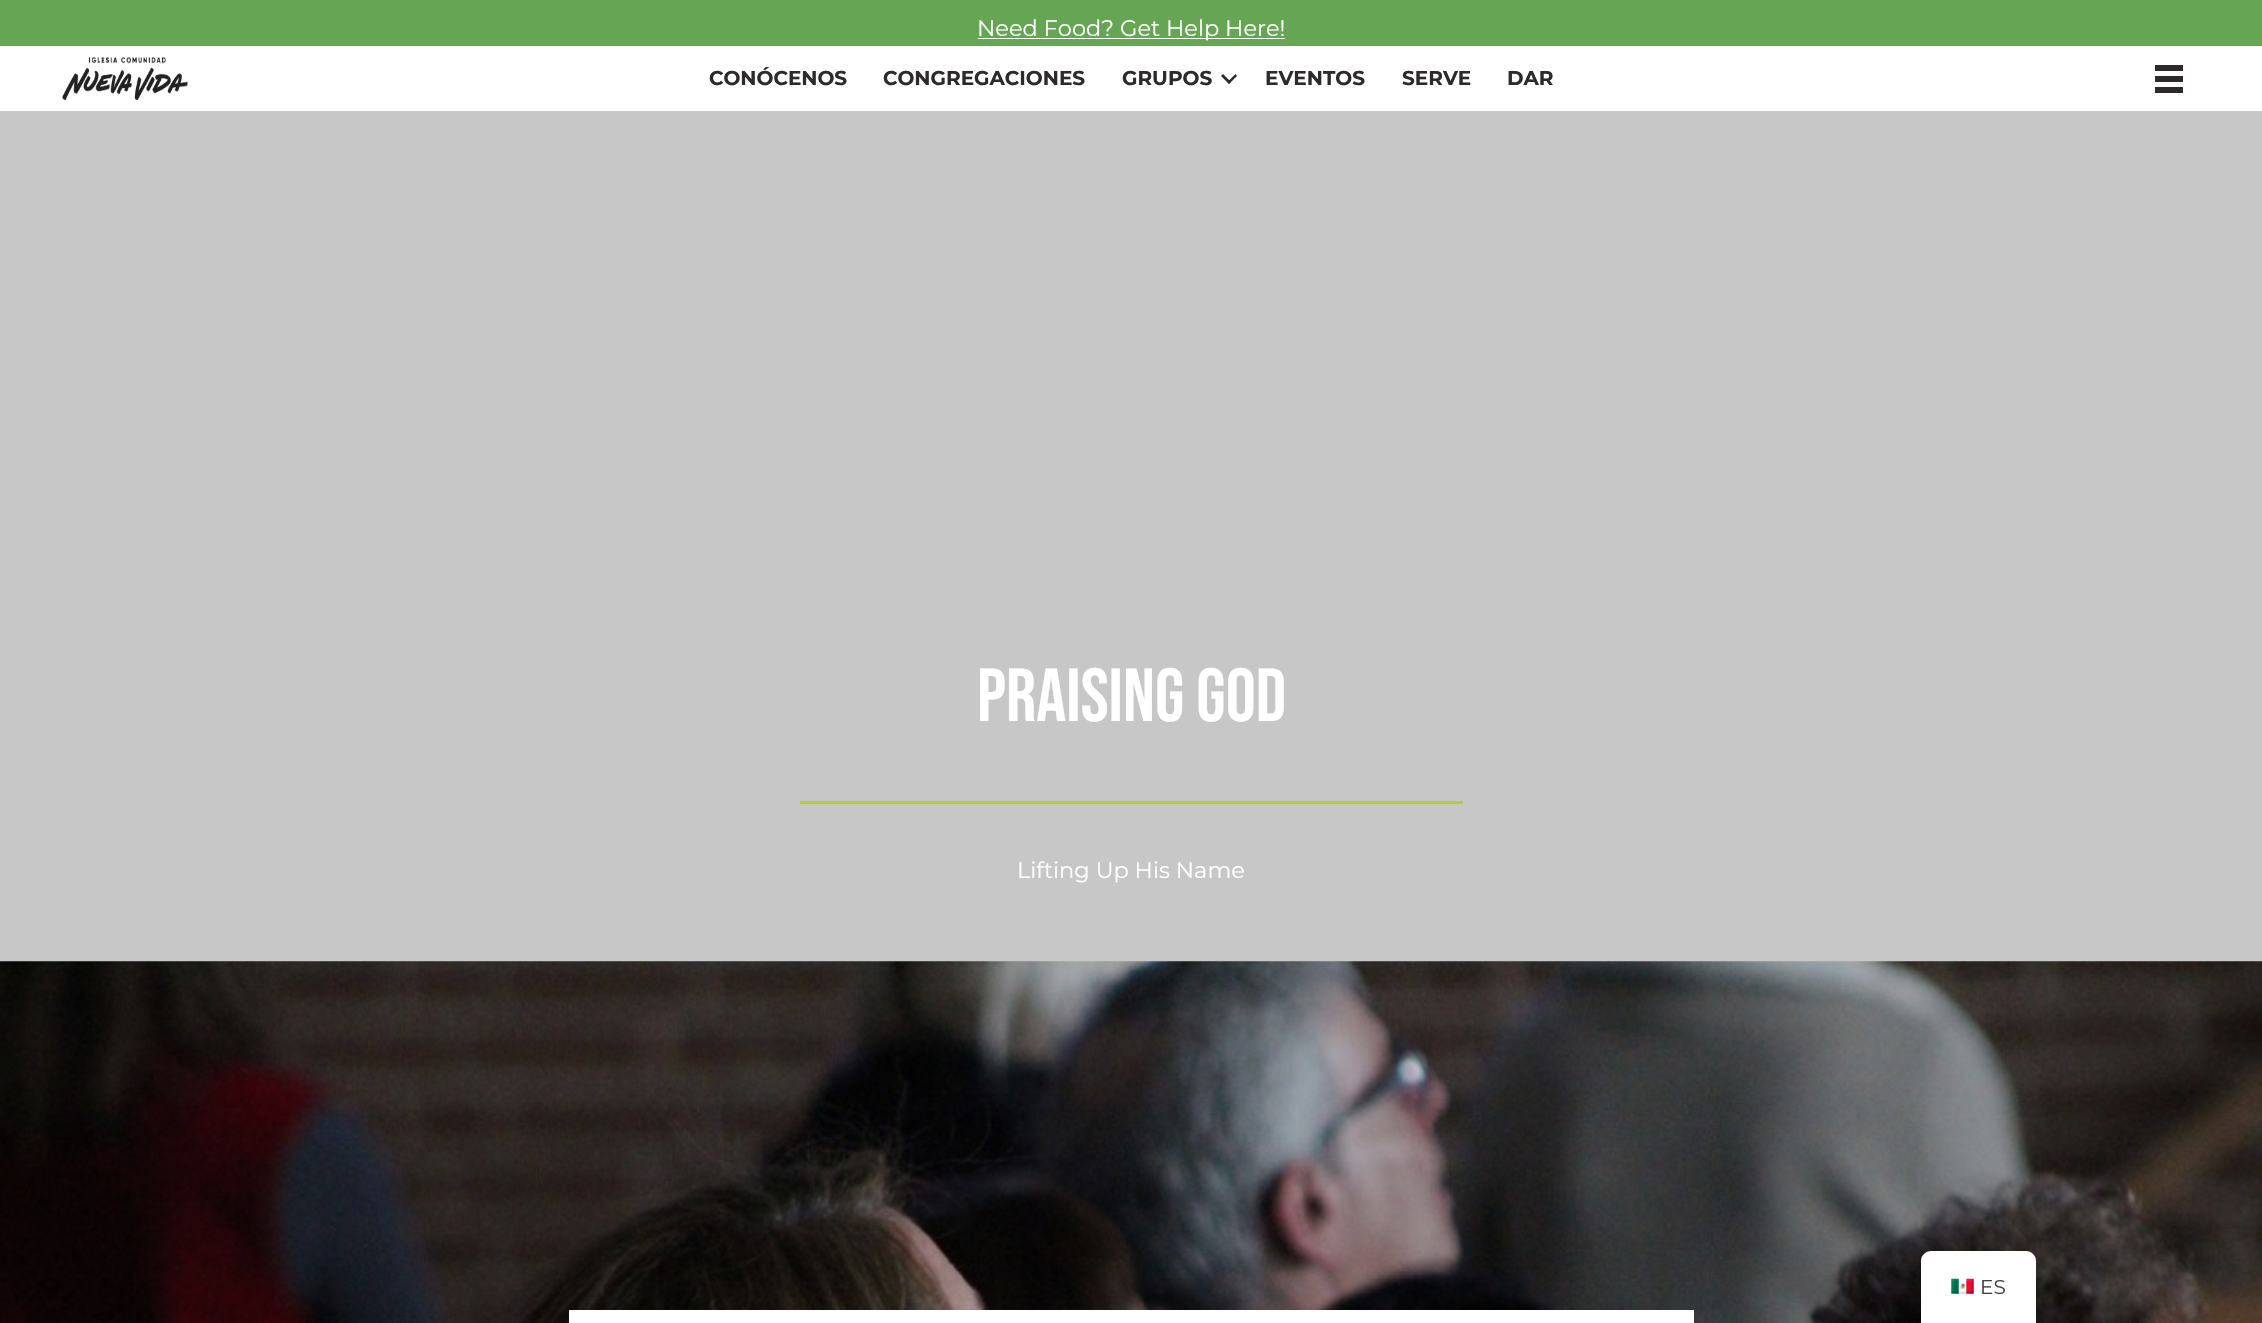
#include "include/core/SkBlurTypes.h"
#include "include/core/SkCanvas.h"
#include "include/core/SkData.h"
#include "include/core/SkFont.h"
#include "include/core/SkFontMgr.h"
#include "include/core/SkImage.h"
#include "include/core/SkMaskFilter.h"
#include "include/core/SkPaint.h"
#include "include/core/SkPathBuilder.h"
#include "include/core/SkTextBlob.h"
#include "include/effects/SkDashPathEffect.h"
#include "include/effects/SkGradientShader.h"
#include "include/utils/SkParsePath.h"

extern sk_sp<SkFontMgr> fontMgr;

static SkFont font(const char* family, int weight, float size, bool italic = false) {
    SkFontStyle style(weight, SkFontStyle::kNormal_Width,
        italic ? SkFontStyle::kItalic_Slant : SkFontStyle::kUpright_Slant);
    SkFont result(fontMgr->matchFamilyStyle(family, style), size);
    result.setSubpixel(true);
    return result;
}

static void drawLabel(SkCanvas* canvas, const char* s, float x, float y, const SkFont& font, SkColor color) {
    SkPaint ink(SkColor4f::FromColor(color));
    ink.setAntiAlias(true);
    canvas->drawString(s, x, y, font, ink);
}

static void fillRect(SkCanvas* canvas, float x, float y, float w, float h, SkColor color) {
    SkPaint ink(SkColor4f::FromColor(color));
    ink.setAntiAlias(true);
    canvas->drawRect(SkRect::MakeXYWH(x, y, w, h), ink);
}

static void drawPhoto(SkCanvas* canvas, const char* path, float x, float y, float w, float h) {
    auto image = SkImages::DeferredFromEncodedData(SkData::MakeFromFileName(path));
    canvas->drawImageRect(image, SkRect::MakeXYWH(x, y, w, h), SkSamplingOptions());
}

static SkPath parsePath(const char* data, bool evenOdd = false) {
    SkPath result = *SkParsePath::FromSVGString(data);
    if (evenOdd) result.setFillType(SkPathFillType::kEvenOdd);
    return result;
}

void draw(SkCanvas* canvas) {
    SkPaint paint;
    paint.setAntiAlias(true);
    canvas->clear(0xFFC7C7C7);
    fillRect(canvas, 0, 0, 2262, 46, 0xFF65A554);
    fillRect(canvas, 978, 38, 307, 1, 0xFFFFFFFF);
    SkFont font1 = font("Montserrat", 400, 22.5f);
    drawLabel(canvas, "Need Food? Get Help Here!", 977, 36, font1, 0xFFFFFFFF);
    fillRect(canvas, 0, 46, 2262, 65, 0xFFFFFFFF);
    drawPhoto(canvas, "assets/img1.png", 62, 57, 126, 43);
    SkFont font2 = font("Montserrat", 700, 20);
    drawLabel(canvas, "CONÓCENOS", 709, 85, font2, 0xFF2E2A2B);
    drawLabel(canvas, "CONGREGACIONES", 883, 85, font2, 0xFF2E2A2B);
    drawLabel(canvas, "GRUPOS", 1122, 85, font2, 0xFF2E2A2B);
    paint.setColor(0xFF2E2A2B);
    canvas->drawPath(parsePath("M1235.5 74L1237 76L1229 84L1227.5 82Z"), paint);
    canvas->drawPath(parsePath("M1223 74L1231 82L1229 84L1221 76Z"), paint);
    drawLabel(canvas, "EVENTOS", 1265, 85, font2, 0xFF2E2A2B);
    drawLabel(canvas, "SERVE", 1402, 85, font2, 0xFF2E2A2B);
    drawLabel(canvas, "DAR", 1507, 85, font2, 0xFF2E2A2B);
    fillRect(canvas, 2155, 65, 28, 6, 0xFF2E2A2B);
    fillRect(canvas, 2155, 76, 28, 6, 0xFF2E2A2B);
    fillRect(canvas, 2155, 87, 28, 6, 0xFF2E2A2B);
    drawPhoto(canvas, "assets/img2.png", 0, 961, 2262, 362);
    SkFont font3 = font("Bebas Neue", 400, 75);
    drawLabel(canvas, "Praising God", 977, 721, font3, 0xFFFFFFFF);
    fillRect(canvas, 800, 801, 663, 3, 0xFFB6D02A);
    drawLabel(canvas, "Lifting Up His Name", 1017, 878, font1, 0xFFFFFFFF);
    fillRect(canvas, 569, 1310, 1125, 13, 0xFFFFFFFF);
    paint.setColor(0x40000000);
    paint.setMaskFilter(SkMaskFilter::MakeBlur(kNormal_SkBlurStyle, 5));
    canvas->drawRoundRect(SkRect::MakeXYWH(1921, 1251, 115, 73), 10, 10, paint);
    paint.setMaskFilter(nullptr);
    paint.setColor(0xFFFFFFFF);
    canvas->drawPath(parsePath("M1931 1251H2026C2031.5 1251 2036 1255.5 2036 1261V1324H1921V1261C1921 1255.5 1925.5 1251 1931 1251Z"), paint);
    drawPhoto(canvas, "assets/img3.png", 1951, 1278, 23, 16);
    SkFont font4 = font("Montserrat", 400, 20);
    drawLabel(canvas, "ES", 1980, 1294, font4, 0xFF404040);
}
